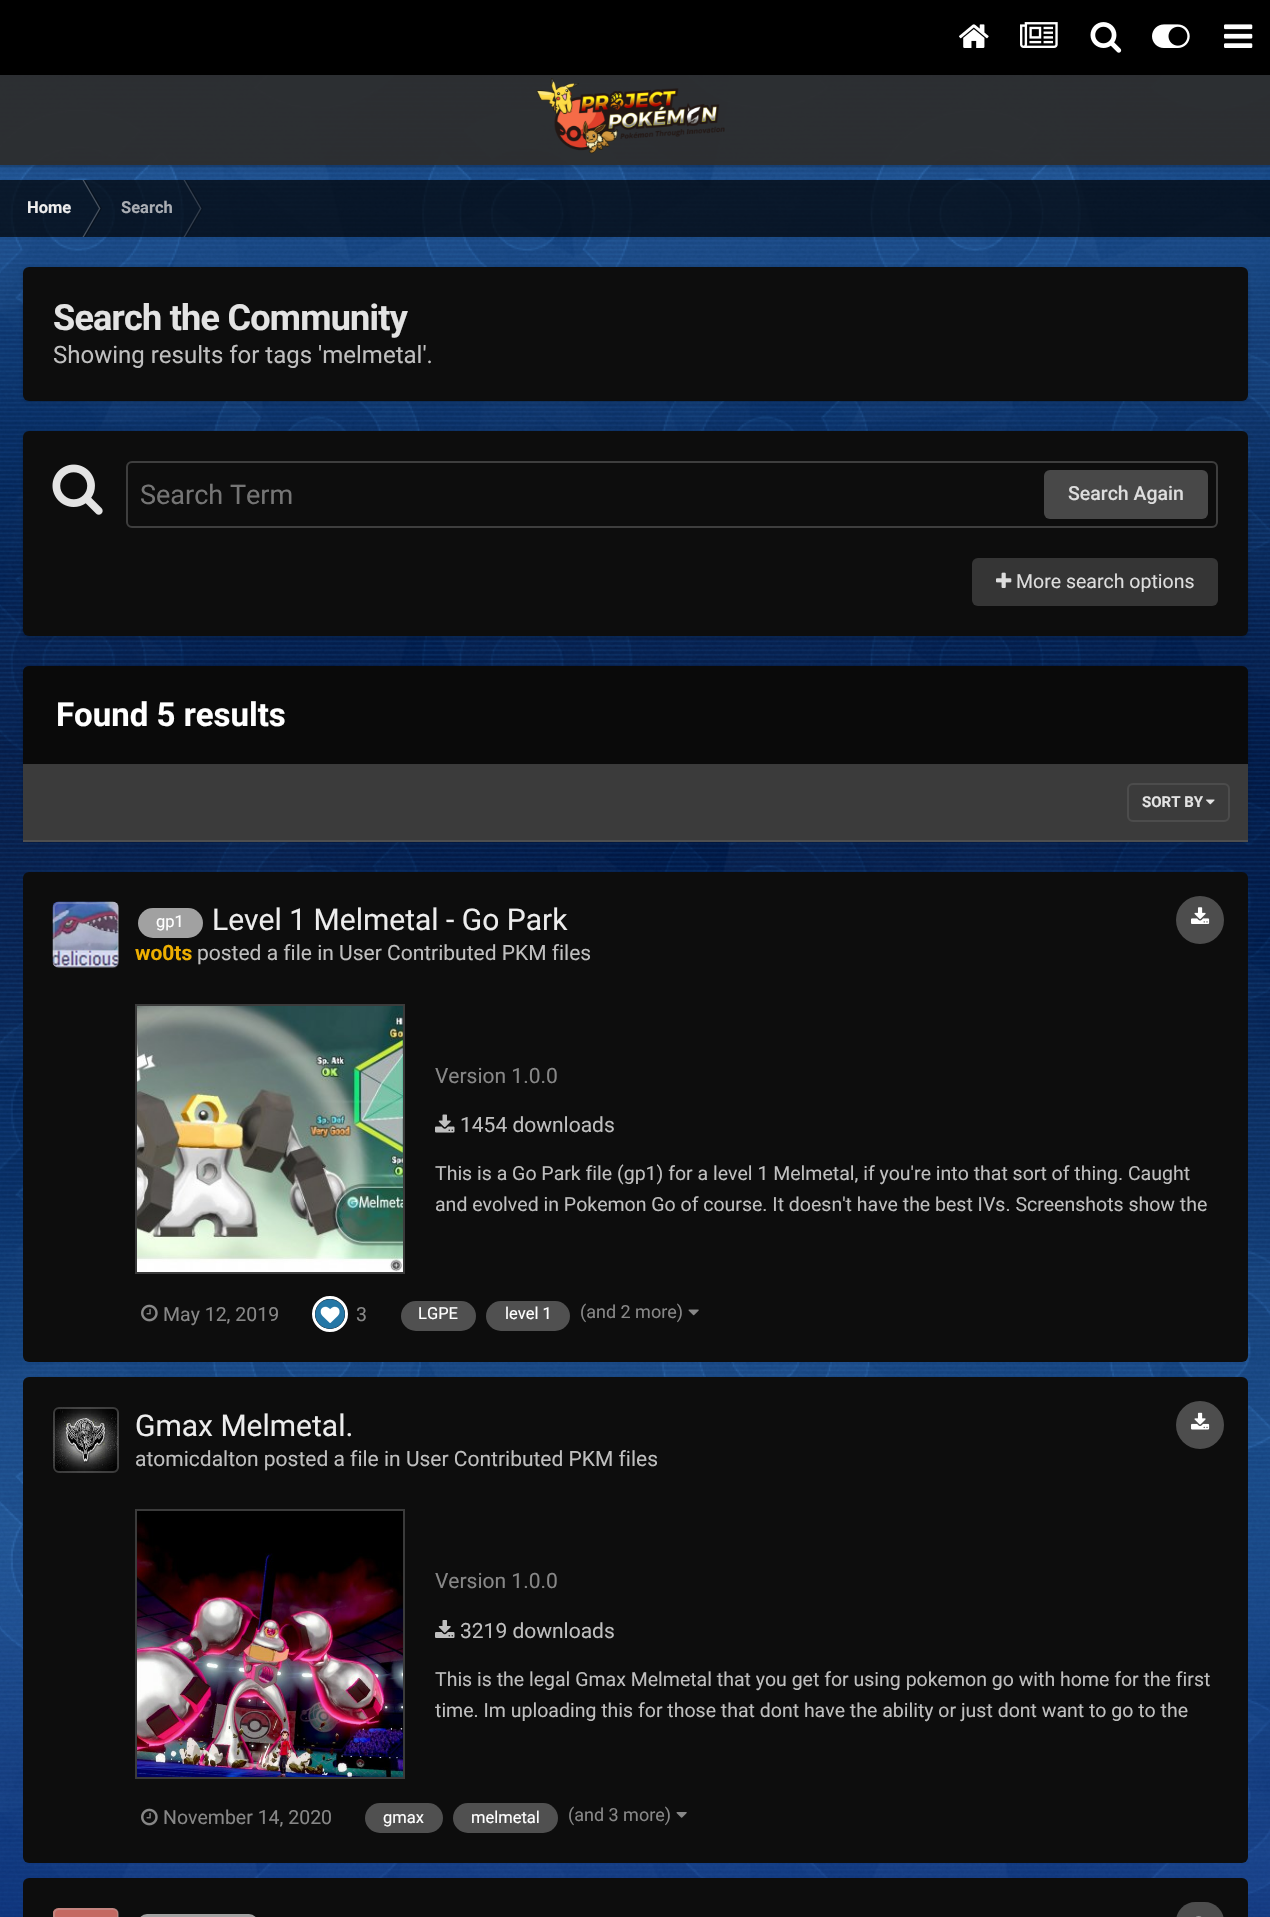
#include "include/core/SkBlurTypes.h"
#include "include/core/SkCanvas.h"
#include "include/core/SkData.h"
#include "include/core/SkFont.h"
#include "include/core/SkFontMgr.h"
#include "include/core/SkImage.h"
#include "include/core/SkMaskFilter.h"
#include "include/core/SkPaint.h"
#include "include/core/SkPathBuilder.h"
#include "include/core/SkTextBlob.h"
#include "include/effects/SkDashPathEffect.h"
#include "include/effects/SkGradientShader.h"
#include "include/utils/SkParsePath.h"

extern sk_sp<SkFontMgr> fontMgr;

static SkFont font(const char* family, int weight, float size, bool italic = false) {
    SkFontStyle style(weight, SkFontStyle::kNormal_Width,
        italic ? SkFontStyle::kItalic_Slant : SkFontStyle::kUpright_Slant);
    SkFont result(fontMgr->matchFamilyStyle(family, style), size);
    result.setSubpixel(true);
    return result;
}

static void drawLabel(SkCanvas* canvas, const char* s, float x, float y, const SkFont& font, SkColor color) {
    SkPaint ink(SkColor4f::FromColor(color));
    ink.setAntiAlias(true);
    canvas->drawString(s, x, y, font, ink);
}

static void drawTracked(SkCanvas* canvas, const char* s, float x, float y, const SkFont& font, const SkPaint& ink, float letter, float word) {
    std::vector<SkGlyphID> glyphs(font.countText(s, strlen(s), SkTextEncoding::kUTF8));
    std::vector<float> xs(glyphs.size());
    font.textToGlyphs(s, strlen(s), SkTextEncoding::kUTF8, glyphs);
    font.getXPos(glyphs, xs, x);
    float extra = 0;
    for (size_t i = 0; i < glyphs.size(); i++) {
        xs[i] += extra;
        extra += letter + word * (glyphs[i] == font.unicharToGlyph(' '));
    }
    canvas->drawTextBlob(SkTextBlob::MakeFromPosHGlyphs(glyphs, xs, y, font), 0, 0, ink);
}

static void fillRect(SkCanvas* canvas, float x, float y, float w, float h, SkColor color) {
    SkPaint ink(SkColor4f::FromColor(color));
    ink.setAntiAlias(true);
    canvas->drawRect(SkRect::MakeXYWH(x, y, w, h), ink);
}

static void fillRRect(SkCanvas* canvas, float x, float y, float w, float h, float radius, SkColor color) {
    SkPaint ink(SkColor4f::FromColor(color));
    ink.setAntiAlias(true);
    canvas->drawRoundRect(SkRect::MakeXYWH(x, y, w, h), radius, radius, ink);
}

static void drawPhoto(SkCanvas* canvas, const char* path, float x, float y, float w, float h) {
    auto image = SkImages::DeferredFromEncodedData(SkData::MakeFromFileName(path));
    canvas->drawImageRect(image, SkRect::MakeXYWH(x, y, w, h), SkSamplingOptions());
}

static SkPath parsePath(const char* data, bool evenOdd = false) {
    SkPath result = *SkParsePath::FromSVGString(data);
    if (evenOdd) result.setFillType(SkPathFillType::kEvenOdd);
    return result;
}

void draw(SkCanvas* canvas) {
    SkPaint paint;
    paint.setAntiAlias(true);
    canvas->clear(0xFFFFFFFF);
    fillRect(canvas, 0, 0, 1270, 75, 0xFF000000);
    drawPhoto(canvas, "assets/img1.png", 959, 24, 30, 24);
    drawPhoto(canvas, "assets/img2.png", 1020, 22, 38, 26);
    drawPhoto(canvas, "assets/img3.png", 1090, 22, 32, 31);
    drawPhoto(canvas, "assets/img4.png", 1152, 24, 38, 24);
    drawPhoto(canvas, "assets/img5.png", 1224, 24, 29, 24);
    drawPhoto(canvas, "assets/img7.png", 0, 75, 1270, 1842);
    drawPhoto(canvas, "assets/img8.png", 0, 75, 1270, 1842);
    paint.setColor(0x1A000000);
    canvas->drawPath(parsePath("M0 165V167H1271V77H1270V165Z"), paint);
    canvas->save();
    canvas->clipPath(parsePath("M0 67H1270V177H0ZM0 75H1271V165H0Z", true), true);
    paint.setColor(0x26000000);
    paint.setMaskFilter(SkMaskFilter::MakeBlur(kNormal_SkBlurStyle, 3));
    canvas->drawRect(SkRect::MakeXYWH(0, 77, 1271, 90), paint);
    paint.setMaskFilter(nullptr);
    canvas->restore();
    fillRect(canvas, 0, 75, 1270, 90, 0xF22C2C2C);
    drawPhoto(canvas, "assets/img6.png", 536, 78, 189, 76);
    fillRect(canvas, 0, 180, 1270, 57, 0xB3000000);
    SkFont font1 = font("Roboto", 700, 16.5f);
    drawLabel(canvas, "Home", 27, 213, font1, 0xFFEDEDED);
    paint.setColor(0x40FFFFFF);
    canvas->drawPath(parsePath("M82.5 180H84L100.5 208.5H99Z"), paint);
    paint.setColor(0x4D000000);
    canvas->drawPath(parsePath("M84 180H85.5L102 208.5H100.5Z"), paint);
    paint.setColor(0x40FFFFFF);
    canvas->drawPath(parsePath("M82.5 237H84L100.5 208.5H99Z"), paint);
    paint.setColor(0x4D000000);
    canvas->drawPath(parsePath("M84 237H85.5L102 208.5H100.5Z"), paint);
    drawLabel(canvas, "Search", 121, 213, font1, 0xFFA9ADB3);
    paint.setColor(0x2BFFFFFF);
    canvas->drawPath(parsePath("M183.5 180H185L201.5 208.5H200Z"), paint);
    paint.setColor(0x36000000);
    canvas->drawPath(parsePath("M185 180H186.5L203 208.5H201.5Z"), paint);
    paint.setColor(0x2BFFFFFF);
    canvas->drawPath(parsePath("M183.5 237H185L201.5 208.5H200Z"), paint);
    paint.setColor(0x36000000);
    canvas->drawPath(parsePath("M185 237H186.5L203 208.5H201.5Z"), paint);
    paint.setColor(0x33000000);
    paint.setMaskFilter(SkMaskFilter::MakeBlur(kNormal_SkBlurStyle, 2));
    canvas->drawRoundRect(SkRect::MakeXYWH(23, 269, 1225, 133), 6, 6, paint);
    paint.setMaskFilter(nullptr);
    fillRRect(canvas, 23, 267, 1225, 134, 6, 0xFF0D0D0D);
    SkFont font2 = font("Roboto", 700, 36);
    paint.setColor(0xFFE3E3E3);
    drawTracked(canvas, "Search the Community", 53, 330, font2, paint, -0.75f, 0);
    SkFont font3 = font("Roboto", 400, 24);
    drawLabel(canvas, "Showing results for tags 'melmetal'.", 53, 363, font3, 0xFFBFBFBF);
    paint.setColor(0x33000000);
    paint.setMaskFilter(SkMaskFilter::MakeBlur(kNormal_SkBlurStyle, 2));
    canvas->drawRoundRect(SkRect::MakeXYWH(23, 432, 1225, 206), 6, 6, paint);
    paint.setMaskFilter(nullptr);
    fillRRect(canvas, 23, 431, 1225, 205, 6, 0xFF0D0D0D);
    drawPhoto(canvas, "assets/img9.png", 52, 464, 51, 51);
    paint.setStroke(true);
    paint.setStrokeWidth(2);
    paint.setColor(0xFF3E3E3E);
    canvas->drawRoundRect(SkRect::MakeXYWH(127, 462, 1090, 65), 5, 5, paint);
    SkFont font4 = font("Roboto", 400, 27);
    drawLabel(canvas, "Search Term", 140, 504, font4, 0xFF757575);
    fillRRect(canvas, 1044, 470, 164, 49, 6, 0xFF484848);
    SkFont font5 = font("Roboto", 500, 19.5f);
    drawLabel(canvas, "Search Again", 1068, 500, font5, 0xFFDDDDDD);
    fillRRect(canvas, 972, 558, 246, 48, 6, 0xFF353535);
    drawPhoto(canvas, "assets/img10.png", 996, 572, 16, 16);
    SkFont font6 = font("Roboto", 400, 19.5f);
    drawLabel(canvas, "More search options", 1016, 588, font6, 0xFFDDDDDD);
    paint.setStroke(false);
    paint.setColor(0x33000000);
    paint.setMaskFilter(SkMaskFilter::MakeBlur(kNormal_SkBlurStyle, 2));
    canvas->drawRoundRect(SkRect::MakeXYWH(23, 668, 1225, 175), 6, 6, paint);
    paint.setMaskFilter(nullptr);
    fillRRect(canvas, 23, 666, 1225, 176, 6, 0xFF0D0D0D);
    paint.setColor(0x4D000000);
    canvas->drawPath(parsePath("M29 666H1242C1245.5 666 1248 668.5 1248 672V765H23V672C23 668.5 25.5 666 29 666Z"), paint);
    fillRect(canvas, 23, 764, 1225, 1, 0xFF3A3A3A);
    SkFont font7 = font("Roboto", 700, 33);
    drawLabel(canvas, "Found 5 results", 56, 726, font7, 0xFFFFFFFF);
    fillRect(canvas, 23, 765, 1225, 75, 0xFF3B3B3B);
    fillRect(canvas, 23, 840, 1225, 2, 0xFF4F4F4F);
    drawPhoto(canvas, "assets/img11.png", 1206, 799, 9, 6);
    paint.setStroke(true);
    paint.setColor(0xFF4C4C4C);
    canvas->drawRoundRect(SkRect::MakeXYWH(1128, 784, 101, 37), 5, 5, paint);
    SkFont font8 = font("Roboto", 700, 15);
    drawLabel(canvas, "SORT BY", 1142, 807, font8, 0xFFE3E3E3);
    fillRRect(canvas, 23, 872, 1225, 490, 6, 0xFF0D0D0D);
    drawPhoto(canvas, "assets/img12.png", 52, 901, 67, 67);
    paint.setColor(0x4DBFBFBF);
    canvas->drawRoundRect(SkRect::MakeXYWH(54, 903, 64, 64), 5, 5, paint);
    fillRRect(canvas, 138, 908, 65, 30, 15, 0xFFA1A1A1);
    SkFont font9 = font("Roboto", 400, 16.5f);
    drawLabel(canvas, "gp1", 156, 927, font9, 0xFFFFFFFF);
    SkFont font10 = font("Roboto", 400, 30);
    drawLabel(canvas, "Level 1 Melmetal - Go Park", 212, 930, font10, 0xFFEDEDED);
    SkFont font11 = font("Roboto", 700, 21);
    drawLabel(canvas, "wo0ts", 135, 960, font11, 0xFFEDAE00);
    SkFont font12 = font("Roboto", 400, 21);
    drawLabel(canvas, "posted a file in User Contributed PKM files", 197, 960, font12, 0xFFBFBFBF);
    paint.setStroke(false);
    paint.setColor(0xFF4D4D4D);
    canvas->drawCircle(1200, 920, 24, paint);
    drawPhoto(canvas, "assets/img13.png", 1191, 907, 19, 17);
    drawPhoto(canvas, "assets/img14.png", 137, 1006, 266, 266);
    paint.setStroke(true);
    paint.setColor(0xFF3B3B3B);
    canvas->drawRect(SkRect::MakeXYWH(136, 1005, 268, 268), paint);
    drawLabel(canvas, "Version 1.0.0", 435, 1083, font12, 0xFF878787);
    drawPhoto(canvas, "assets/img15.png", 435, 1114, 20, 19);
    drawLabel(canvas, "1454 downloads", 460, 1132, font12, 0xFFBFBFBF);
    drawLabel(canvas, "This is a Go Park file (gp1) for a level 1 Melmetal, if you're into that sort of thing. Caught", 435, 1180, font6, 0xFFBFBFBF);
    drawLabel(canvas, "and evolved in Pokemon Go of course. It doesn't have the best IVs. Screenshots show the", 435, 1211, font6, 0xFFBFBFBF);
    drawPhoto(canvas, "assets/img16.png", 141, 1304, 17, 18);
    drawLabel(canvas, "May 12, 2019", 163, 1321, font6, 0xFF878787);
    paint.setStrokeWidth(3);
    paint.setColor(0xFFFFFFFF);
    canvas->drawCircle(330, 1314, 16.5f, paint);
    drawPhoto(canvas, "assets/img17.png", 315, 1299, 30, 30);
    drawLabel(canvas, "3", 356, 1321, font6, 0xFF878787);
    fillRRect(canvas, 401, 1301, 75, 30, 15, 0xFF505050);
    drawLabel(canvas, "LGPE", 418, 1319, font9, 0xFFFFFFFF);
    fillRRect(canvas, 486, 1301, 84, 30, 15, 0xFF505050);
    drawLabel(canvas, "level 1", 505, 1319, font9, 0xFFFFFFFF);
    SkFont font13 = font("Roboto", 400, 18);
    drawLabel(canvas, "(and 2 more)", 580, 1318, font13, 0xFF878787);
    drawPhoto(canvas, "assets/img18.png", 688, 1309, 11, 7);
    fillRRect(canvas, 23, 1377, 1225, 486, 6, 0xFF0D0D0D);
    drawPhoto(canvas, "assets/img19.png", 52, 1407, 67, 66);
    paint.setStrokeWidth(2);
    paint.setColor(0x4DBFBFBF);
    canvas->drawRoundRect(SkRect::MakeXYWH(54, 1408, 64, 64), 5, 5, paint);
    drawLabel(canvas, "Gmax Melmetal.", 135, 1436, font10, 0xFFEDEDED);
    drawLabel(canvas, "atomicdalton posted a file in User Contributed PKM files", 135, 1466, font12, 0xFFBFBFBF);
    paint.setStroke(false);
    paint.setColor(0xFF4D4D4D);
    canvas->drawCircle(1200, 1425, 24, paint);
    drawPhoto(canvas, "assets/img20.png", 1191, 1412, 19, 18);
    drawPhoto(canvas, "assets/img21.png", 137, 1511, 266, 266);
    paint.setStroke(true);
    paint.setColor(0xFF3B3B3B);
    canvas->drawRect(SkRect::MakeXYWH(136, 1510, 268, 268), paint);
    drawLabel(canvas, "Version 1.0.0", 435, 1588, font12, 0xFF878787);
    drawPhoto(canvas, "assets/img22.png", 435, 1620, 20, 18);
    drawLabel(canvas, "3219 downloads", 460, 1638, font12, 0xFFBFBFBF);
    drawLabel(canvas, "This is the legal Gmax Melmetal that you get for using pokemon go with home for the first", 435, 1686, font6, 0xFFBFBFBF);
    drawLabel(canvas, "time. Im uploading this for those that dont have the ability or just dont want to go to the", 435, 1717, font6, 0xFFBFBFBF);
    drawPhoto(canvas, "assets/img16.png", 141, 1808, 17, 18);
    drawLabel(canvas, "November 14, 2020", 163, 1824, font6, 0xFF878787);
    fillRRect(canvas, 365, 1803, 78, 30, 15, 0xFF505050);
    drawLabel(canvas, "gmax", 383, 1823, font9, 0xFFFFFFFF);
    fillRRect(canvas, 453, 1803, 105, 30, 15, 0xFF505050);
    drawLabel(canvas, "melmetal", 471, 1823, font9, 0xFFFFFFFF);
    drawLabel(canvas, "(and 3 more)", 568, 1821, font13, 0xFF878787);
    drawPhoto(canvas, "assets/img23.png", 676, 1812, 11, 6);
    fillRRect(canvas, 23, 1878, 1225, 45, 6, 0xFF0D0D0D);
    drawPhoto(canvas, "assets/img24.png", 53, 1908, 66, 9);
    paint.setColor(0x4DBFBFBF);
    canvas->drawRoundRect(SkRect::MakeXYWH(54, 1909, 64, 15), 5, 5, paint);
    fillRRect(canvas, 138, 1914, 120, 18, 15, 0xFFA1A1A1);
    fillRRect(canvas, 1176, 1902, 48, 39, 24, 0xFF4D4D4D);
    drawPhoto(canvas, "assets/img25.png", 1196, 1916, 6, 1);
}
